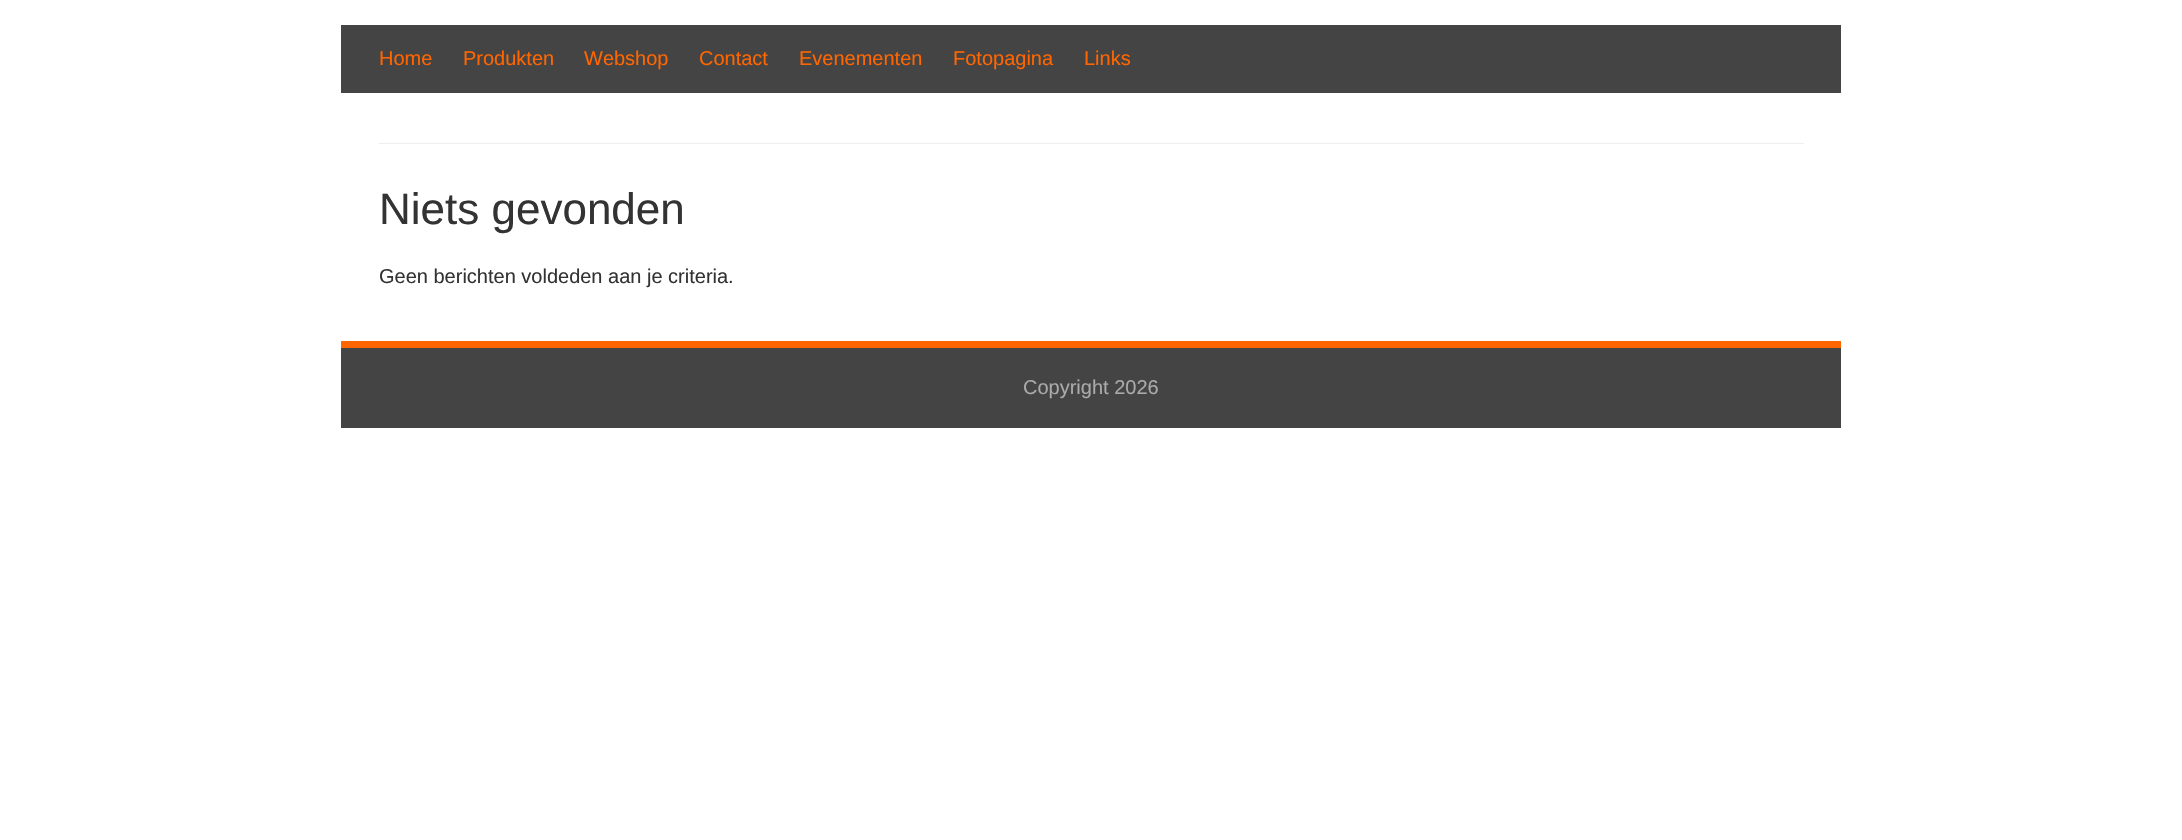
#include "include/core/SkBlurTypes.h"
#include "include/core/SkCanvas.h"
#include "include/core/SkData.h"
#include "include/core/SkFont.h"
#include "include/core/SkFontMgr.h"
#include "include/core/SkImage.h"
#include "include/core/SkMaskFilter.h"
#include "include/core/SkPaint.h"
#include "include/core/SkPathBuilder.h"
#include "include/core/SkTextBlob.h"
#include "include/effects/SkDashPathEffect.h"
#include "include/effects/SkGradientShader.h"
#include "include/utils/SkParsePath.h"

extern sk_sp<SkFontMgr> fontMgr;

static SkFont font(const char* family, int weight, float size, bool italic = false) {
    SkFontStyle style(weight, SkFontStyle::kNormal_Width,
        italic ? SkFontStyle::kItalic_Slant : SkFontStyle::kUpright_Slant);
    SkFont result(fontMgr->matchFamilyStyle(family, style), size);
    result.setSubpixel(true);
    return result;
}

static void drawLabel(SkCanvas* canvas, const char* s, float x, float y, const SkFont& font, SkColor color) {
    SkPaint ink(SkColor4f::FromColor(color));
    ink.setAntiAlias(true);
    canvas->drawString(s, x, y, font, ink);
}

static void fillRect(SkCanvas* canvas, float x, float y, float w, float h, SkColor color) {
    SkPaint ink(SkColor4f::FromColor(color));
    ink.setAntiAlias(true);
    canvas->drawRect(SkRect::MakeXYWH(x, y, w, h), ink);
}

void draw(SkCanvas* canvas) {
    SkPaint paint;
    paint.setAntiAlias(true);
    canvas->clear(0xFFFFFFFF);
    fillRect(canvas, 341, 25, 1500, 68, 0xFF444444);
    SkFont font1 = font("Liberation Sans", 400, 20);
    drawLabel(canvas, "Home", 379, 65, font1, 0xFFFF6600);
    drawLabel(canvas, "Produkten", 463, 65, font1, 0xFFFF6600);
    drawLabel(canvas, "Webshop", 584, 65, font1, 0xFFFF6600);
    drawLabel(canvas, "Contact", 699, 65, font1, 0xFFFF6600);
    drawLabel(canvas, "Evenementen", 799, 65, font1, 0xFFFF6600);
    drawLabel(canvas, "Fotopagina", 953, 65, font1, 0xFFFF6600);
    drawLabel(canvas, "Links", 1084, 65, font1, 0xFFFF6600);
    fillRect(canvas, 379, 143, 1425, 1, 0xFFEEEEEE);
    SkFont font2 = font("Liberation Sans", 400, 44);
    drawLabel(canvas, "Niets gevonden", 379, 224, font2, 0xFF333333);
    drawLabel(canvas, "Geen berichten voldeden aan je criteria.", 379, 283, font1, 0xFF333333);
    fillRect(canvas, 341, 341, 1500, 7, 0xFFFF6600);
    fillRect(canvas, 341, 348, 1500, 80, 0xFF444444);
    drawLabel(canvas, "Copyright 2026", 1023, 394, font1, 0xFFAAAAAA);
}
